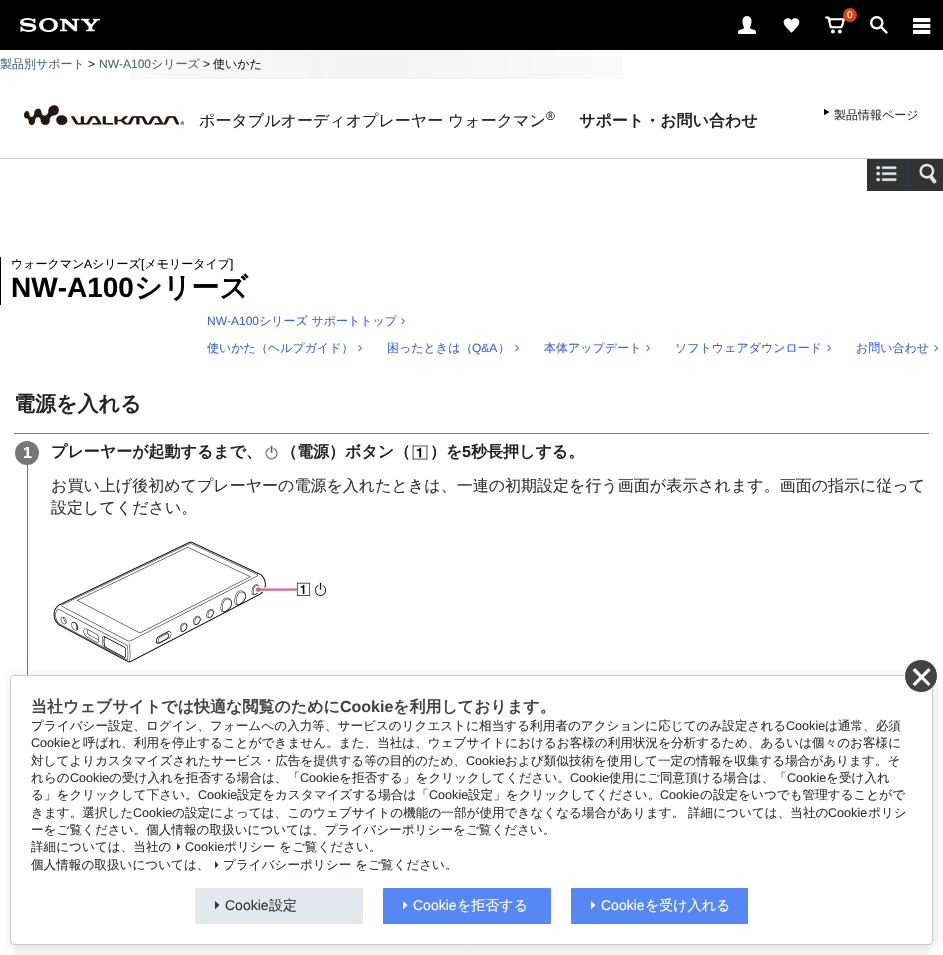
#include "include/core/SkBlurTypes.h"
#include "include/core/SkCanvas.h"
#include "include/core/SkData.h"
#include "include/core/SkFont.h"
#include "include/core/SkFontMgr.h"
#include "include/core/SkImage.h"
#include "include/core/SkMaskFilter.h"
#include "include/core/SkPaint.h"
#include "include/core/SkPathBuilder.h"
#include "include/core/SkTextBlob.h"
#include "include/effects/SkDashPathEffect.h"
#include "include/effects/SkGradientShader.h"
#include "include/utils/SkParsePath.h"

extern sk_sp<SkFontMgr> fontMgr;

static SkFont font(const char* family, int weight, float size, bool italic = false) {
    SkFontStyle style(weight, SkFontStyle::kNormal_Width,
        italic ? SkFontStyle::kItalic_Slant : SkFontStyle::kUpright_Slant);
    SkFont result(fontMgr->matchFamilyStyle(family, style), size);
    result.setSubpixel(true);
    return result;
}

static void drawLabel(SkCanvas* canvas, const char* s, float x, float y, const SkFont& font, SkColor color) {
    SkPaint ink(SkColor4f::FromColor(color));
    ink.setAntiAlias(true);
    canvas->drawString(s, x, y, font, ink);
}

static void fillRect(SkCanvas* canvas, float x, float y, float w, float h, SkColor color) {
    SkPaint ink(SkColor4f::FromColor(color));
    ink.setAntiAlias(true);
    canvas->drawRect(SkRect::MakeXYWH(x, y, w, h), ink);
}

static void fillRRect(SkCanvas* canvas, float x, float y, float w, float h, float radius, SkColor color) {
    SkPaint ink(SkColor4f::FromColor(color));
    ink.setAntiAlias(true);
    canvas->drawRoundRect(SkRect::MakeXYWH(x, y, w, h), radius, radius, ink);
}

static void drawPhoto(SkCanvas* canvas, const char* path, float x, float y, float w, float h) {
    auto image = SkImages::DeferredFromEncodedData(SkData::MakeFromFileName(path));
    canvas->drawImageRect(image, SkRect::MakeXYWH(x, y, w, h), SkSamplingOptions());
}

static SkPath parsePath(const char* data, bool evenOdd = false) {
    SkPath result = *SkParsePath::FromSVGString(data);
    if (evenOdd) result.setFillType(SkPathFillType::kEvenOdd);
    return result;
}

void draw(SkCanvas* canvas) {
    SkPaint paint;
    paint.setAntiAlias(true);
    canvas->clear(0xFFFFFFFF);
    fillRect(canvas, 0, 0, 943, 50, 0xFF000000);
    drawPhoto(canvas, "assets/img1.png", 825, 16, 20, 18);
    paint.setColor(0xFFD24615);
    canvas->drawCircle(850, 15, 7, paint);
    SkFont font1 = font("Liberation Sans", 400, 10);
    drawLabel(canvas, "0", 847, 18, font1, 0xFFFFFFFF);
    drawPhoto(canvas, "assets/img2.png", 738, 16, 18, 18);
    drawPhoto(canvas, "assets/img3.png", 783, 18, 17, 15);
    drawPhoto(canvas, "assets/img4.png", 870, 16, 18, 18);
    drawPhoto(canvas, "assets/img5.png", 20, 18, 80, 14);
    drawPhoto(canvas, "assets/img6.png", 913, 18, 18, 16);
    drawPhoto(canvas, "assets/img7.png", 130, 50, 493, 29);
    SkFont font2 = font("WenQuanYi Zen Hei", 500, 12);
    drawLabel(canvas, "製品別サポート", 0, 68, font2, 0xFF43677E);
    SkFont font3 = font("Liberation Sans", 400, 12);
    drawLabel(canvas, ">", 88, 68, font3, 0xFF232323);
    drawLabel(canvas, "NW-A100", 99, 68, font3, 0xFF43677E);
    drawLabel(canvas, "シリーズ", 151, 68, font2, 0xFF43677E);
    drawLabel(canvas, ">", 203, 68, font3, 0xFF232323);
    drawLabel(canvas, "使いかた", 213, 68, font2, 0xFF232323);
    fillRect(canvas, 0, 158, 943, 1, 0xFFCCCCCC);
    drawPhoto(canvas, "assets/img8.png", 24, 105, 160, 20);
    SkFont font4 = font("WenQuanYi Zen Hei", 500, 16);
    drawLabel(canvas, "ポータブルオーディオプレーヤー ウォークマン", 199, 126, font4, 0xFF232323);
    drawLabel(canvas, "®", 546, 120, font3, 0xFF232323);
    SkFont font5 = font("WenQuanYi Zen Hei", 700, 16);
    drawLabel(canvas, "サポート・お問い合わせ", 579, 126, font5, 0xFF232323);
    drawPhoto(canvas, "assets/img9.png", 824, 109, 5, 6);
    drawLabel(canvas, "製品情報ページ", 834, 119, font2, 0xFF333333);
    fillRect(canvas, 867, 159, 76, 32, 0xFF333333);
    fillRect(canvas, 907, 159, 2, 32, 0xFF2F353D);
    drawPhoto(canvas, "assets/img10.png", 876, 166, 21, 16);
    drawPhoto(canvas, "assets/img11.png", 919, 163, 18, 21);
    fillRect(canvas, 0, 257, 1, 48, 0xFF030303);
    drawLabel(canvas, "ウォークマン", 11, 268, font2, 0xFF030303);
    drawLabel(canvas, "A", 84, 268, font3, 0xFF030303);
    drawLabel(canvas, "シリーズ メモリータイプ", 92, 268, font2, 0xFF030303);
    drawLabel(canvas, "[", 141, 268, font3, 0xFF030303);
    drawLabel(canvas, "]", 230, 268, font3, 0xFF030303);
    SkFont font6 = font("Liberation Sans", 700, 28);
    drawLabel(canvas, "NW-A100", 11, 297, font6, 0xFF030303);
    SkFont font7 = font("WenQuanYi Zen Hei", 700, 28);
    drawLabel(canvas, "シリーズ", 134, 297, font7, 0xFF030303);
    drawLabel(canvas, "NW-A100", 207, 325, font3, 0xFF3865E0);
    drawLabel(canvas, "シリーズ サポートトップ", 259, 325, font2, 0xFF3865E0);
    drawPhoto(canvas, "assets/img12.png", 401, 318, 4, 7);
    drawLabel(canvas, "使いかた（ヘルプガイド）", 207, 352, font2, 0xFF3865E0);
    drawPhoto(canvas, "assets/img12.png", 358, 345, 4, 7);
    drawLabel(canvas, "困ったときは（", 387, 352, font2, 0xFF3865E0);
    drawLabel(canvas, "Q&A", 472, 352, font3, 0xFF3865E0);
    drawLabel(canvas, "）", 498, 352, font2, 0xFF3865E0);
    drawPhoto(canvas, "assets/img12.png", 515, 345, 4, 7);
    drawLabel(canvas, "本体アップデート", 544, 352, font2, 0xFF3865E0);
    drawPhoto(canvas, "assets/img12.png", 646, 345, 4, 7);
    drawLabel(canvas, "ソフトウェアダウンロード", 675, 352, font2, 0xFF3865E0);
    drawPhoto(canvas, "assets/img12.png", 827, 345, 4, 7);
    drawLabel(canvas, "お問い合わせ", 856, 352, font2, 0xFF3865E0);
    drawPhoto(canvas, "assets/img12.png", 934, 345, 4, 7);
    fillRect(canvas, 14, 433, 915, 1, 0xFF767676);
    SkFont font8 = font("WenQuanYi Zen Hei", 700, 21);
    drawLabel(canvas, "電源を入れる", 14, 411, font8, 0xFF232323);
    fillRect(canvas, 27, 441, 1, 240, 0xFF767676);
    paint.setColor(0xFF767676);
    canvas->drawCircle(27, 453, 12, paint);
    SkFont font9 = font("Liberation Sans", 700, 16);
    drawLabel(canvas, "1", 23, 458, font9, 0xFFFFFFFF);
    drawLabel(canvas, "プレーヤーが起動するまで、", 51, 457, font5, 0xFF232323);
    drawPhoto(canvas, "assets/img13.png", 265, 445, 13, 15);
    drawLabel(canvas, "（電源）ボタン（", 281, 457, font5, 0xFF232323);
    drawPhoto(canvas, "assets/img14.png", 411, 444, 18, 17);
    drawLabel(canvas, "）を", 430, 457, font5, 0xFF232323);
    drawLabel(canvas, "5", 462, 457, font9, 0xFF232323);
    drawLabel(canvas, "秒長押しする。", 471, 457, font5, 0xFF232323);
    drawLabel(canvas, "お買い上げ後初めてプレーヤーの電源を入れたときは、一連の初期設定を行う画面が表示されます。画面の指示に従って", 51, 491, font4, 0xFF333333);
    drawLabel(canvas, "設定してください。", 51, 513, font4, 0xFF333333);
    drawPhoto(canvas, "assets/img15.png", 53, 541, 273, 122);
    fillRRect(canvas, 14, 888, 915, 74, 10, 0xFFF7F7F7);
    paint.setColor(0x1A000000);
    paint.setMaskFilter(SkMaskFilter::MakeBlur(kNormal_SkBlurStyle, 6));
    canvas->drawRoundRect(SkRect::MakeXYWH(12, 677, 923, 270), 4, 4, paint);
    paint.setMaskFilter(nullptr);
    paint.setColor(0xFFFFFFFF);
    canvas->drawRoundRect(SkRect::MakeXYWH(10.5f, 675.5f, 922, 269), 3.5f, 3.5f, paint);
    paint.setStroke(true);
    paint.setStrokeWidth(1);
    paint.setColor(0xFFCCCCCC);
    canvas->drawRoundRect(SkRect::MakeXYWH(10.5f, 675.5f, 922, 269), 3.5f, 3.5f, paint);
    paint.setStroke(false);
    paint.setColor(0xFF444444);
    canvas->drawCircle(921, 676, 16.5f, paint);
    paint.setStroke(true);
    paint.setColor(0xFFFFFFFF);
    canvas->drawCircle(921, 676, 16.5f, paint);
    paint.setStroke(false);
    canvas->drawPath(parsePath("M912.5 684L928.5 668L930.5 670.5L915 686Z"), paint);
    canvas->drawPath(parsePath("M915 668L930.5 684L928.5 686L912.5 670.5Z"), paint);
    drawLabel(canvas, "当社ウェブサイトでは快適な閲覧のために", 31, 712, font5, 0xFF444444);
    drawLabel(canvas, "Cookie", 340, 712, font9, 0xFF444444);
    drawLabel(canvas, "を利用しております。", 393, 712, font5, 0xFF444444);
    SkFont font10 = font("WenQuanYi Zen Hei", 500, 12.6f);
    drawLabel(canvas, "プライバシー設定、ログイン、フォームへの入力等、サービスのリクエストに相当する利用者のアクションに応じてのみ設定される", 31, 730, font10, 0xFF333333);
    SkFont font11 = font("Liberation Sans", 400, 12.6f);
    drawLabel(canvas, "Cookie", 786, 730, font11, 0xFF333333);
    drawLabel(canvas, "は通常、必須", 825, 730, font10, 0xFF333333);
    drawLabel(canvas, "Cookie", 31, 747, font11, 0xFF333333);
    drawLabel(canvas, "と呼ばれ、利用を停止することができません。また、当社は、ウェブサイトにおけるお客様の利用状況を分析するため、あるいは個々のお客様に", 70, 747, font10, 0xFF333333);
    drawLabel(canvas, "対してよりカスタマイズされたサービス・広告を提供する等の目的のため、", 31, 765, font10, 0xFF333333);
    drawLabel(canvas, "Cookie", 466, 765, font11, 0xFF333333);
    drawLabel(canvas, "および類似技術を使用して一定の情報を収集する場合があります。そ", 505, 765, font10, 0xFF333333);
    drawLabel(canvas, "れらの", 31, 782, font10, 0xFF333333);
    drawLabel(canvas, "Cookie", 70, 782, font11, 0xFF333333);
    drawLabel(canvas, "の受け入れを拒否する場合は、「", 109, 782, font10, 0xFF333333);
    drawLabel(canvas, "Cookie", 300, 782, font11, 0xFF333333);
    drawLabel(canvas, "を拒否する」をクリックしてください。", 339, 782, font10, 0xFF333333);
    drawLabel(canvas, "Cookie", 570, 782, font11, 0xFF333333);
    drawLabel(canvas, "使用にご同意頂ける場合は、「", 609, 782, font10, 0xFF333333);
    drawLabel(canvas, "Cookie", 787, 782, font11, 0xFF333333);
    drawLabel(canvas, "を受け入れ", 826, 782, font10, 0xFF333333);
    drawLabel(canvas, "る」をクリックして下さい。", 31, 799, font10, 0xFF333333);
    drawLabel(canvas, "Cookie", 198, 799, font11, 0xFF333333);
    drawLabel(canvas, "設定をカスタマイズする場合は「", 237, 799, font10, 0xFF333333);
    drawLabel(canvas, "Cookie", 429, 799, font11, 0xFF333333);
    drawLabel(canvas, "設定」をクリックしてください。", 468, 799, font10, 0xFF333333);
    drawLabel(canvas, "Cookie", 660, 799, font11, 0xFF333333);
    drawLabel(canvas, "の設定をいつでも管理することがで", 700, 799, font10, 0xFF333333);
    drawLabel(canvas, "きます。選択した", 31, 817, font10, 0xFF333333);
    drawLabel(canvas, "Cookie", 133, 817, font11, 0xFF333333);
    drawLabel(canvas, "の設定によっては、このウェブサイトの機能の一部が使用できなくなる場合があります。", 172, 817, font10, 0xFF333333);
    drawLabel(canvas, "詳細については、当社の", 688, 817, font10, 0xFF333333);
    drawLabel(canvas, "Cookie", 828, 817, font11, 0xFF333333);
    drawLabel(canvas, "ポリシ", 868, 817, font10, 0xFF333333);
    drawLabel(canvas, "ーをご覧ください。個人情報の取扱いについては、プライバシーポリシーをご覧ください。", 31, 834, font10, 0xFF333333);
    drawLabel(canvas, "詳細については、当社の", 31, 851, font10, 0xFF333333);
    paint.setColor(0xFF2F353D);
    canvas->drawPath(parsePath("M177 843L180.5 847L177 850.5Z"), paint);
    drawLabel(canvas, "Cookie", 185, 851, font11, 0xFF2F353D);
    drawLabel(canvas, "ポリシー", 224, 851, font10, 0xFF2F353D);
    drawLabel(canvas, "をご覧ください。", 279, 851, font10, 0xFF333333);
    drawLabel(canvas, "個人情報の取扱いについては、", 31, 869, font10, 0xFF333333);
    canvas->drawPath(parsePath("M215 861L218.5 865L215 868.5Z"), paint);
    drawLabel(canvas, "プライバシーポリシー", 223, 869, font10, 0xFF2F353D);
    drawLabel(canvas, "をご覧ください。", 355, 869, font10, 0xFF333333);
    fillRRect(canvas, 195, 888, 168, 36, 1, 0xFFE4E7EC);
    canvas->drawPath(parsePath("M215 901L219.5 905L215 909.5Z"), paint);
    SkFont font12 = font("Liberation Sans", 400, 14);
    drawLabel(canvas, "Cookie", 225, 910, font12, 0xFF2F353D);
    SkFont font13 = font("WenQuanYi Zen Hei", 500, 14);
    drawLabel(canvas, "設定", 269, 910, font13, 0xFF2F353D);
    fillRRect(canvas, 383, 888, 168, 36, 1, 0xFF5787F4);
    paint.setColor(0xFFFFFFFF);
    canvas->drawPath(parsePath("M403 901L407.5 905L403 909.5Z"), paint);
    drawLabel(canvas, "Cookie", 413, 910, font12, 0xFFFFFFFF);
    drawLabel(canvas, "を拒否する", 457, 910, font13, 0xFFFFFFFF);
    fillRRect(canvas, 571, 888, 177, 36, 1, 0xFF5787F4);
    canvas->drawPath(parsePath("M591 901L595.5 905L591 909.5Z"), paint);
    drawLabel(canvas, "Cookie", 601, 910, font12, 0xFFFFFFFF);
    drawLabel(canvas, "を受け入れる", 645, 910, font13, 0xFFFFFFFF);
}
